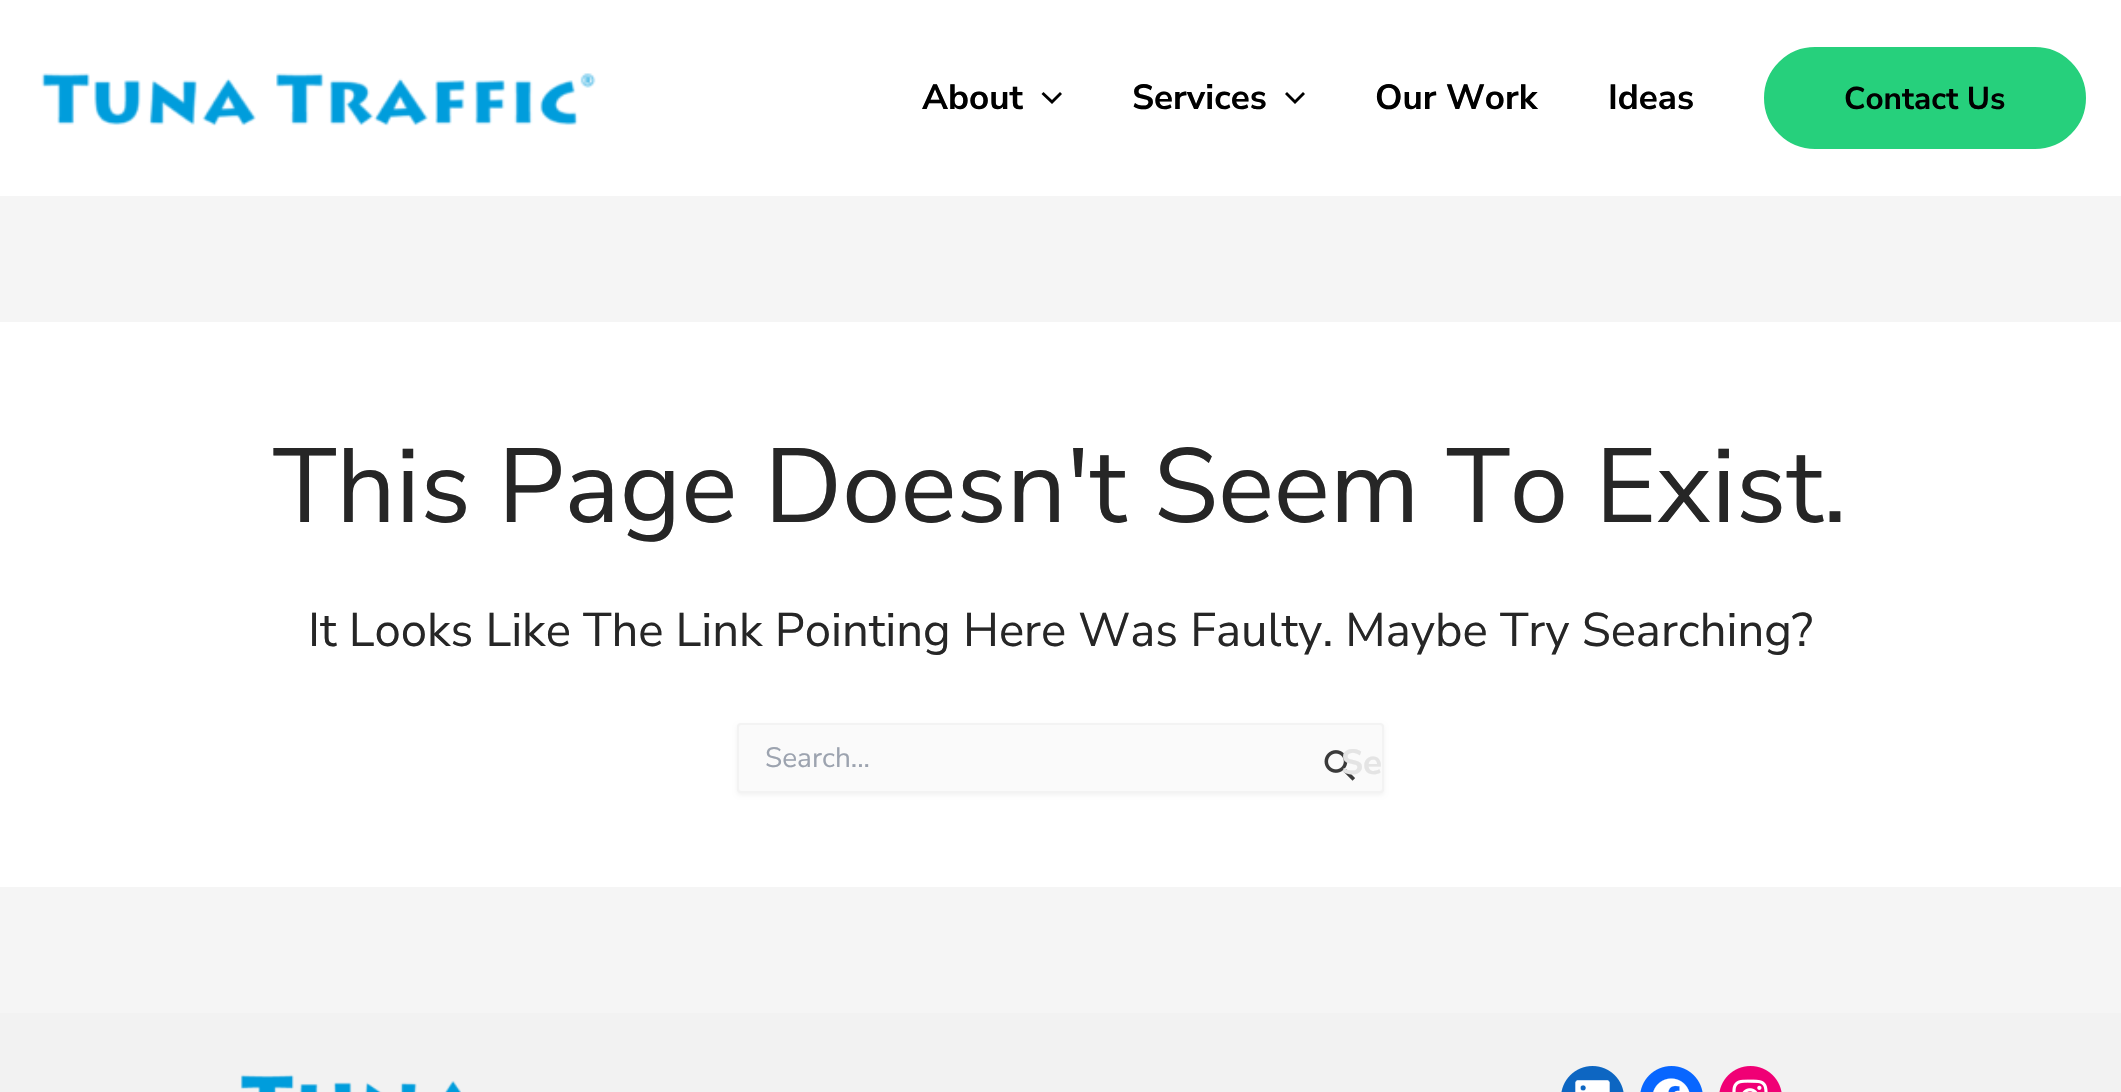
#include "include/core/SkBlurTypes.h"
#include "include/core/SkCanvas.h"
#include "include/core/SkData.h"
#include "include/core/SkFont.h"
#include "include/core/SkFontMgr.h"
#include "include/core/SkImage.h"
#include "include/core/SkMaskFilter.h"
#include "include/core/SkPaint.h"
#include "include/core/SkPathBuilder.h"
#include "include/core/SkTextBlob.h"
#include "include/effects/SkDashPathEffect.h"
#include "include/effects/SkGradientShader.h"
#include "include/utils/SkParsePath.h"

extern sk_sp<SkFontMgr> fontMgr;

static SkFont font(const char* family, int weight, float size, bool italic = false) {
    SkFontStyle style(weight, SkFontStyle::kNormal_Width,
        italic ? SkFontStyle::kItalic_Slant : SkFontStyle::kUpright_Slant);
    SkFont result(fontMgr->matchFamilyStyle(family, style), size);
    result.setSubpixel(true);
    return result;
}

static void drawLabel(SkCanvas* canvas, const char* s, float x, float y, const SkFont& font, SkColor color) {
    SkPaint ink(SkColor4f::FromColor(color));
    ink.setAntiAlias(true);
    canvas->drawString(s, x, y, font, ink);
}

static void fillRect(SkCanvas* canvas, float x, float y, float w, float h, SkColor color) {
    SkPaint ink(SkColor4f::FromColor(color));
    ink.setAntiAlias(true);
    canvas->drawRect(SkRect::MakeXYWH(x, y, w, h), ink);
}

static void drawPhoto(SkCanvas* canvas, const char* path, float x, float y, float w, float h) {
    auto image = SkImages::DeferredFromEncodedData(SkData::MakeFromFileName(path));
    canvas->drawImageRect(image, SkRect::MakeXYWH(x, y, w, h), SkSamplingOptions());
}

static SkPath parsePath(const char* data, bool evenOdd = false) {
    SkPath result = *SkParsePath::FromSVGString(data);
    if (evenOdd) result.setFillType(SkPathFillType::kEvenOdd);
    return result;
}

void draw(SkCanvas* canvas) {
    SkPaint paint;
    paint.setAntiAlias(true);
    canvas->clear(0xFFF5F5F5);
    fillRect(canvas, 0, 0, 2121, 196, 0xFFFFFFFF);
    drawPhoto(canvas, "assets/img1.png", 41, 73, 555, 53);
    SkFont font1 = font("Nunito Sans", 700, 35);
    drawLabel(canvas, "About", 922, 109, font1, 0xFF000000);
    paint.setColor(0xFF000000);
    canvas->drawPath(parsePath("M1041.5 94L1052 104L1062 94L1060 92L1052 100L1043.5 92Z"), paint);
    drawLabel(canvas, "Services", 1132, 109, font1, 0xFF000000);
    canvas->drawPath(parsePath("M1285 94L1295 104L1305 94L1303 92L1295 100L1287 92Z"), paint);
    drawLabel(canvas, "Our Work", 1375, 109, font1, 0xFF000000);
    drawLabel(canvas, "Ideas", 1608, 109, font1, 0xFF000000);
    paint.setColor(0xFF26D07C);
    canvas->drawRoundRect(SkRect::MakeXYWH(1767.5f, 50.5f, 315, 95), 47.5f, 47.5f, paint);
    paint.setStroke(true);
    paint.setStrokeWidth(7);
    canvas->drawRoundRect(SkRect::MakeXYWH(1767.5f, 50.5f, 315, 95), 47.5f, 47.5f, paint);
    SkFont font2 = font("Nunito Sans", 700, 31.5f);
    drawLabel(canvas, "Contact Us", 1844, 109, font2, 0xFF000000);
    fillRect(canvas, 0, 322, 2121, 565, 0xFFFFFFFF);
    SkFont font3 = font("Nunito Sans", 400, 105);
    drawLabel(canvas, "This Page Doesn't Seem To Exist.", 273, 522, font3, 0xFF262626);
    SkFont font4 = font("Nunito Sans", 400, 47.25f);
    drawLabel(canvas, "It Looks Like The Link Pointing Here Was Faulty. Maybe Try Searching?", 308, 646, font4, 0xFF262626);
    paint.setStroke(false);
    paint.setColor(0x0D000000);
    paint.setMaskFilter(SkMaskFilter::MakeBlur(kNormal_SkBlurStyle, 2));
    canvas->drawRoundRect(SkRect::MakeXYWH(737, 725, 647, 70), 4, 4, paint);
    paint.setMaskFilter(nullptr);
    paint.setColor(0xFFFAFAFA);
    canvas->drawRoundRect(SkRect::MakeXYWH(738, 724, 645, 68), 3, 3, paint);
    paint.setStroke(true);
    paint.setStrokeWidth(2);
    paint.setColor(0xFFF3F3F3);
    canvas->drawRoundRect(SkRect::MakeXYWH(738, 724, 645, 68), 3, 3, paint);
    SkFont font5 = font("Nunito Sans", 400, 28);
    drawLabel(canvas, "Search...", 765, 767, font5, 0xFF9CA3AF);
    drawPhoto(canvas, "assets/img2.png", 1324, 750, 31, 31);
    drawLabel(canvas, "Se", 1341, 774, font1, 0xFFE4E4E4);
    fillRect(canvas, 0, 1013, 2121, 79, 0xFFF2F2F2);
    drawPhoto(canvas, "assets/img3.png", 240, 1074, 221, 18);
    drawPhoto(canvas, "assets/img4.png", 1561, 1066, 63, 26);
    drawPhoto(canvas, "assets/img5.png", 1640, 1066, 63, 26);
    drawPhoto(canvas, "assets/img6.png", 1719, 1066, 63, 26);
}
